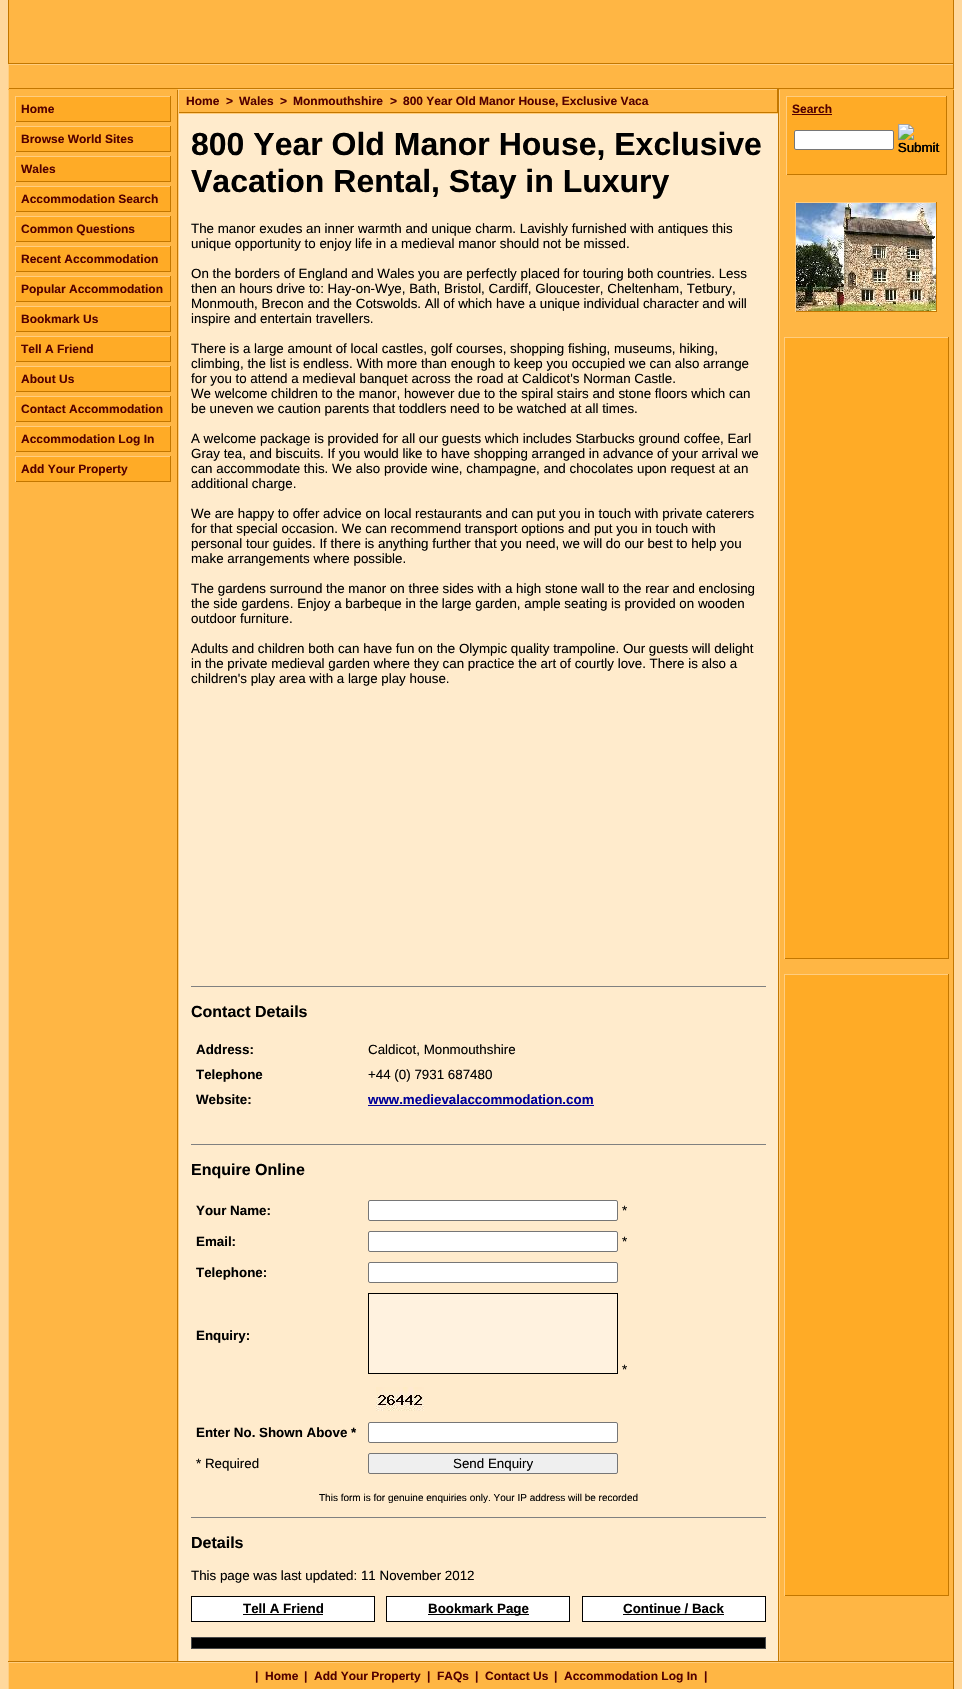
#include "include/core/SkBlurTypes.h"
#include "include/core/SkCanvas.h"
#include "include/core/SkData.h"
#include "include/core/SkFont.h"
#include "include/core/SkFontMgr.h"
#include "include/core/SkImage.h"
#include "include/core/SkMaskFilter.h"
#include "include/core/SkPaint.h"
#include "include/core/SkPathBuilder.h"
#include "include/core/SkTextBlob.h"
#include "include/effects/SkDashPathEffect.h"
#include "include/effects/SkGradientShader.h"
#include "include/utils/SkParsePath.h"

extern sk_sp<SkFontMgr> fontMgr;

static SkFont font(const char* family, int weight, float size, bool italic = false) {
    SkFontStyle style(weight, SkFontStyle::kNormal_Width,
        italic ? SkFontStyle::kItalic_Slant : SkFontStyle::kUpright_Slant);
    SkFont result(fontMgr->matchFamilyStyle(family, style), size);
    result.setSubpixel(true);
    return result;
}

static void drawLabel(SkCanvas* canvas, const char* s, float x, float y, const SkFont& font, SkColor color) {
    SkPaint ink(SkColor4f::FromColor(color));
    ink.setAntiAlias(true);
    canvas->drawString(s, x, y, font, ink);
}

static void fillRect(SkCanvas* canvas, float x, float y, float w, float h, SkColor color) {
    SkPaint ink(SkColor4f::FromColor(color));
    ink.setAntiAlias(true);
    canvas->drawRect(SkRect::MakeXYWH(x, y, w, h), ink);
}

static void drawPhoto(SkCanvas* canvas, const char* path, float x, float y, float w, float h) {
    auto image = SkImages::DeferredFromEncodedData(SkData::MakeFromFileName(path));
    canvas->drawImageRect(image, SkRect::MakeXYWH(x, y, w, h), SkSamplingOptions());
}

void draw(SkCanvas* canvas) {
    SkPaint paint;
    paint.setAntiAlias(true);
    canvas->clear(0xFFFFD89D);
    paint.setColor(0xFFFFB644);
    canvas->drawRect(SkRect::MakeXYWH(8.5f, -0.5f, 945, 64), paint);
    paint.setStroke(true);
    paint.setStrokeWidth(1);
    paint.setColor(0xFFC37700);
    canvas->drawRect(SkRect::MakeXYWH(8.5f, -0.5f, 945, 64), paint);
    fillRect(canvas, 9, 65, 944, 23, 0xFFFFB644);
    fillRect(canvas, 8, 64, 946, 1, 0xFFFFCD7F);
    fillRect(canvas, 953, 64, 1, 25, 0xFFC37700);
    fillRect(canvas, 8, 88, 946, 1, 0xFFC37700);
    fillRect(canvas, 8, 64, 1, 25, 0xFFFFCD7F);
    fillRect(canvas, 8, 89, 170, 1, 0xFFFFB644);
    fillRect(canvas, 779, 89, 175, 1, 0xFFFFB644);
    fillRect(canvas, 179, 114, 599, 1547, 0xFFFFEBCC);
    fillRect(canvas, 778, 89, 1, 1572, 0xFFC37700);
    fillRect(canvas, 179, 90, 598, 22, 0xFFFFB644);
    fillRect(canvas, 178, 89, 600, 1, 0xFFFFCD7F);
    fillRect(canvas, 777, 89, 1, 24, 0xFFC37700);
    fillRect(canvas, 178, 112, 600, 1, 0xFFC37700);
    fillRect(canvas, 178, 89, 1, 24, 0xFFFFCD7F);
    SkFont font1 = font("Liberation Sans", 700, 12);
    drawLabel(canvas, "Home", 186, 105, font1, 0xFF530000);
    drawLabel(canvas, ">", 226, 105, font1, 0xFF530000);
    drawLabel(canvas, "Wales", 239, 105, font1, 0xFF530000);
    drawLabel(canvas, ">", 280, 105, font1, 0xFF530000);
    drawLabel(canvas, "Monmouthshire", 293, 105, font1, 0xFF530000);
    drawLabel(canvas, ">", 390, 105, font1, 0xFF530000);
    drawLabel(canvas, "800 Year Old Manor House, Exclusive Vaca", 403, 105, font1, 0xFF530000);
    fillRect(canvas, 178, 113, 600, 1, 0xFFFFCD7F);
    fillRect(canvas, 178, 113, 1, 1548, 0xFFFFCD7F);
    SkFont font2 = font("Liberation Sans", 700, 32);
    drawLabel(canvas, "800 Year Old Manor House, Exclusive", 191, 155, font2, 0xFF000000);
    drawLabel(canvas, "Vacation Rental, Stay in Luxury", 191, 192, font2, 0xFF000000);
    SkFont font3 = font("Liberation Sans", 400, 13.35f);
    drawLabel(canvas, "The manor exudes an inner warmth and unique charm. Lavishly furnished with antiques this", 191, 233, font3, 0xFF000000);
    drawLabel(canvas, "unique opportunity to enjoy life in a medieval manor should not be missed.", 191, 248, font3, 0xFF000000);
    drawLabel(canvas, "On the borders of England and Wales you are perfectly placed for touring both countries. Less", 191, 278, font3, 0xFF000000);
    drawLabel(canvas, "then an hours drive to: Hay-on-Wye, Bath, Bristol, Cardiff, Gloucester, Cheltenham, Tetbury,", 191, 293, font3, 0xFF000000);
    drawLabel(canvas, "Monmouth, Brecon and the Cotswolds. All of which have a unique individual character and will", 191, 308, font3, 0xFF000000);
    drawLabel(canvas, "inspire and entertain travellers.", 191, 323, font3, 0xFF000000);
    drawLabel(canvas, "There is a large amount of local castles, golf courses, shopping fishing, museums, hiking,", 191, 353, font3, 0xFF000000);
    drawLabel(canvas, "climbing, the list is endless. With more than enough to keep you occupied we can also arrange", 191, 368, font3, 0xFF000000);
    drawLabel(canvas, "for you to attend a medieval banquet across the road at Caldicot's Norman Castle.", 191, 383, font3, 0xFF000000);
    drawLabel(canvas, "We welcome children to the manor, however due to the spiral stairs and stone floors which can", 191, 398, font3, 0xFF000000);
    drawLabel(canvas, "be uneven we caution parents that toddlers need to be watched at all times.", 191, 413, font3, 0xFF000000);
    drawLabel(canvas, "A welcome package is provided for all our guests which includes Starbucks ground coffee, Earl", 191, 443, font3, 0xFF000000);
    drawLabel(canvas, "Gray tea, and biscuits. If you would like to have shopping arranged in advance of your arrival we", 191, 458, font3, 0xFF000000);
    drawLabel(canvas, "can accommodate this. We also provide wine, champagne, and chocolates upon request at an", 191, 473, font3, 0xFF000000);
    drawLabel(canvas, "additional charge.", 191, 488, font3, 0xFF000000);
    drawLabel(canvas, "We are happy to offer advice on local restaurants and can put you in touch with private caterers", 191, 518, font3, 0xFF000000);
    drawLabel(canvas, "for that special occasion. We can recommend transport options and put you in touch with", 191, 533, font3, 0xFF000000);
    drawLabel(canvas, "personal tour guides. If there is anything further that you need, we will do our best to help you", 191, 548, font3, 0xFF000000);
    drawLabel(canvas, "make arrangements where possible.", 191, 563, font3, 0xFF000000);
    drawLabel(canvas, "The gardens surround the manor on three sides with a high stone wall to the rear and enclosing", 191, 593, font3, 0xFF000000);
    drawLabel(canvas, "the side gardens. Enjoy a barbeque in the large garden, ample seating is provided on wooden", 191, 608, font3, 0xFF000000);
    drawLabel(canvas, "outdoor furniture.", 191, 623, font3, 0xFF000000);
    drawLabel(canvas, "Adults and children both can have fun on the Olympic quality trampoline. Our guests will delight", 191, 653, font3, 0xFF000000);
    drawLabel(canvas, "in the private medieval garden where they can practice the art of courtly love. There is also a", 191, 668, font3, 0xFF000000);
    drawLabel(canvas, "children's play area with a large play house.", 191, 683, font3, 0xFF000000);
    fillRect(canvas, 191, 986, 575, 1, 0xFF808080);
    SkFont font4 = font("Liberation Sans", 700, 16);
    drawLabel(canvas, "Contact Details", 191, 1017, font4, 0xFF000000);
    SkFont font5 = font("Liberation Sans", 700, 13.35f);
    drawLabel(canvas, "Address:", 196, 1054, font5, 0xFF000000);
    drawLabel(canvas, "Caldicot, Monmouthshire", 368, 1054, font3, 0xFF000000);
    drawLabel(canvas, "Telephone", 196, 1079, font5, 0xFF000000);
    drawLabel(canvas, "+44 (0) 7931 687480", 368, 1079, font3, 0xFF000000);
    drawLabel(canvas, "Website:", 196, 1104, font5, 0xFF000000);
    drawLabel(canvas, "www.medievalaccommodation.com", 368, 1104, font5, 0xFF000099);
    fillRect(canvas, 368, 1105, 226, 1, 0xFF000099);
    fillRect(canvas, 191, 1144, 575, 1, 0xFF808080);
    drawLabel(canvas, "Enquire Online", 191, 1175, font4, 0xFF000000);
    drawLabel(canvas, "Your Name:", 196, 1215, font5, 0xFF000000);
    paint.setStroke(false);
    paint.setColor(0xFFFFFFFF);
    canvas->drawRoundRect(SkRect::MakeXYWH(368.5f, 1200.5f, 249, 20), 1.5f, 1.5f, paint);
    paint.setStroke(true);
    paint.setColor(0xFF767676);
    canvas->drawRoundRect(SkRect::MakeXYWH(368.5f, 1200.5f, 249, 20), 1.5f, 1.5f, paint);
    drawLabel(canvas, "*", 622, 1215, font3, 0xFF000000);
    drawLabel(canvas, "Email:", 196, 1246, font5, 0xFF000000);
    paint.setStroke(false);
    paint.setColor(0xFFFFFFFF);
    canvas->drawRoundRect(SkRect::MakeXYWH(368.5f, 1231.5f, 249, 20), 1.5f, 1.5f, paint);
    paint.setStroke(true);
    paint.setColor(0xFF767676);
    canvas->drawRoundRect(SkRect::MakeXYWH(368.5f, 1231.5f, 249, 20), 1.5f, 1.5f, paint);
    drawLabel(canvas, "*", 622, 1246, font3, 0xFF000000);
    drawLabel(canvas, "Telephone:", 196, 1277, font5, 0xFF000000);
    paint.setStroke(false);
    paint.setColor(0xFFFFFFFF);
    canvas->drawRoundRect(SkRect::MakeXYWH(368.5f, 1262.5f, 249, 20), 1.5f, 1.5f, paint);
    paint.setStroke(true);
    paint.setColor(0xFF767676);
    canvas->drawRoundRect(SkRect::MakeXYWH(368.5f, 1262.5f, 249, 20), 1.5f, 1.5f, paint);
    drawLabel(canvas, "Enquiry:", 196, 1340, font5, 0xFF000000);
    paint.setStroke(false);
    paint.setColor(0xFFFFF2DF);
    canvas->drawRect(SkRect::MakeXYWH(368.5f, 1293.5f, 249, 80), paint);
    paint.setStroke(true);
    paint.setColor(0xFF000000);
    canvas->drawRect(SkRect::MakeXYWH(368.5f, 1293.5f, 249, 80), paint);
    drawLabel(canvas, "*", 622, 1374, font3, 0xFF000000);
    drawPhoto(canvas, "assets/img1.png", 376, 1387, 48, 24);
    drawLabel(canvas, "Enter No. Shown Above *", 196, 1437, font5, 0xFF000000);
    paint.setStroke(false);
    paint.setColor(0xFFFFFFFF);
    canvas->drawRoundRect(SkRect::MakeXYWH(368.5f, 1422.5f, 249, 20), 1.5f, 1.5f, paint);
    paint.setStroke(true);
    paint.setColor(0xFF767676);
    canvas->drawRoundRect(SkRect::MakeXYWH(368.5f, 1422.5f, 249, 20), 1.5f, 1.5f, paint);
    drawLabel(canvas, "* Required", 196, 1468, font3, 0xFF000000);
    paint.setStroke(false);
    paint.setColor(0xFFEFEFEF);
    canvas->drawRoundRect(SkRect::MakeXYWH(368.5f, 1453.5f, 249, 20), 1.5f, 1.5f, paint);
    paint.setStroke(true);
    paint.setColor(0xFF767676);
    canvas->drawRoundRect(SkRect::MakeXYWH(368.5f, 1453.5f, 249, 20), 1.5f, 1.5f, paint);
    drawLabel(canvas, "Send Enquiry", 453, 1468, font3, 0xFF000000);
    SkFont font6 = font("Liberation Sans", 400, 10);
    drawLabel(canvas, "This form is for genuine enquiries only. Your IP address will be recorded", 319, 1501, font6, 0xFF000000);
    fillRect(canvas, 191, 1517, 575, 1, 0xFF808080);
    drawLabel(canvas, "Details", 191, 1548, font4, 0xFF000000);
    drawLabel(canvas, "This page was last updated: 11 November 2012", 191, 1580, font3, 0xFF000000);
    paint.setStroke(false);
    paint.setColor(0xFFFFFFFF);
    canvas->drawRect(SkRect::MakeXYWH(191.5f, 1596.5f, 183, 25), paint);
    paint.setStroke(true);
    paint.setColor(0xFF000000);
    canvas->drawRect(SkRect::MakeXYWH(191.5f, 1596.5f, 183, 25), paint);
    drawLabel(canvas, "Tell A Friend", 243, 1613, font5, 0xFF000000);
    fillRect(canvas, 243, 1614, 80, 1, 0xFF000000);
    paint.setStroke(false);
    paint.setColor(0xFFFFFFFF);
    canvas->drawRect(SkRect::MakeXYWH(386.5f, 1596.5f, 183, 25), paint);
    paint.setStroke(true);
    paint.setColor(0xFF000000);
    canvas->drawRect(SkRect::MakeXYWH(386.5f, 1596.5f, 183, 25), paint);
    fillRect(canvas, 428, 1614, 101, 1, 0xFF000000);
    drawLabel(canvas, "Bookmark Page", 428, 1613, font5, 0xFF000000);
    paint.setStroke(false);
    paint.setColor(0xFFFFFFFF);
    canvas->drawRect(SkRect::MakeXYWH(582.5f, 1596.5f, 183, 25), paint);
    paint.setStroke(true);
    paint.setColor(0xFF000000);
    canvas->drawRect(SkRect::MakeXYWH(582.5f, 1596.5f, 183, 25), paint);
    drawLabel(canvas, "Continue / Back", 623, 1613, font5, 0xFF000000);
    fillRect(canvas, 623, 1614, 101, 1, 0xFF000000);
    paint.setStroke(false);
    canvas->drawRect(SkRect::MakeXYWH(191.5f, 1637.5f, 574, 11), paint);
    paint.setStroke(true);
    paint.setColor(0xFF494949);
    canvas->drawRect(SkRect::MakeXYWH(191.5f, 1637.5f, 574, 11), paint);
    fillRect(canvas, 9, 90, 168, 1571, 0xFFFFB644);
    fillRect(canvas, 177, 90, 1, 1571, 0xFFC37700);
    fillRect(canvas, 8, 90, 1, 1571, 0xFFFFCD7F);
    fillRect(canvas, 16, 97, 154, 24, 0xFFFFAB26);
    fillRect(canvas, 15, 96, 156, 1, 0xFFFFCD7F);
    fillRect(canvas, 170, 96, 1, 26, 0xFFC37700);
    fillRect(canvas, 15, 121, 156, 1, 0xFFC37700);
    fillRect(canvas, 15, 96, 1, 26, 0xFFFFCD7F);
    drawLabel(canvas, "Home", 21, 113, font1, 0xFF530000);
    fillRect(canvas, 16, 127, 154, 24, 0xFFFFAB26);
    fillRect(canvas, 15, 126, 156, 1, 0xFFFFCD7F);
    fillRect(canvas, 170, 126, 1, 26, 0xFFC37700);
    fillRect(canvas, 15, 151, 156, 1, 0xFFC37700);
    fillRect(canvas, 15, 126, 1, 26, 0xFFFFCD7F);
    drawLabel(canvas, "Browse World Sites", 21, 143, font1, 0xFF530000);
    fillRect(canvas, 16, 157, 154, 24, 0xFFFFAB26);
    fillRect(canvas, 15, 156, 156, 1, 0xFFFFCD7F);
    fillRect(canvas, 170, 156, 1, 26, 0xFFC37700);
    fillRect(canvas, 15, 181, 156, 1, 0xFFC37700);
    fillRect(canvas, 15, 156, 1, 26, 0xFFFFCD7F);
    drawLabel(canvas, "Wales", 21, 173, font1, 0xFF530000);
    fillRect(canvas, 16, 187, 154, 24, 0xFFFFAB26);
    fillRect(canvas, 15, 186, 156, 1, 0xFFFFCD7F);
    fillRect(canvas, 170, 186, 1, 26, 0xFFC37700);
    fillRect(canvas, 15, 211, 156, 1, 0xFFC37700);
    fillRect(canvas, 15, 186, 1, 26, 0xFFFFCD7F);
    drawLabel(canvas, "Accommodation Search", 21, 203, font1, 0xFF530000);
    fillRect(canvas, 16, 217, 154, 24, 0xFFFFAB26);
    fillRect(canvas, 15, 216, 156, 1, 0xFFFFCD7F);
    fillRect(canvas, 170, 216, 1, 26, 0xFFC37700);
    fillRect(canvas, 15, 241, 156, 1, 0xFFC37700);
    fillRect(canvas, 15, 216, 1, 26, 0xFFFFCD7F);
    drawLabel(canvas, "Common Questions", 21, 233, font1, 0xFF530000);
    fillRect(canvas, 16, 247, 154, 24, 0xFFFFAB26);
    fillRect(canvas, 15, 246, 156, 1, 0xFFFFCD7F);
    fillRect(canvas, 170, 246, 1, 26, 0xFFC37700);
    fillRect(canvas, 15, 271, 156, 1, 0xFFC37700);
    fillRect(canvas, 15, 246, 1, 26, 0xFFFFCD7F);
    drawLabel(canvas, "Recent Accommodation", 21, 263, font1, 0xFF530000);
    fillRect(canvas, 16, 277, 154, 24, 0xFFFFAB26);
    fillRect(canvas, 15, 276, 156, 1, 0xFFFFCD7F);
    fillRect(canvas, 170, 276, 1, 26, 0xFFC37700);
    fillRect(canvas, 15, 301, 156, 1, 0xFFC37700);
    fillRect(canvas, 15, 276, 1, 26, 0xFFFFCD7F);
    drawLabel(canvas, "Popular Accommodation", 21, 293, font1, 0xFF530000);
    fillRect(canvas, 16, 307, 154, 24, 0xFFFFAB26);
    fillRect(canvas, 15, 306, 156, 1, 0xFFFFCD7F);
    fillRect(canvas, 170, 306, 1, 26, 0xFFC37700);
    fillRect(canvas, 15, 331, 156, 1, 0xFFC37700);
    fillRect(canvas, 15, 306, 1, 26, 0xFFFFCD7F);
    drawLabel(canvas, "Bookmark Us", 21, 323, font1, 0xFF530000);
    fillRect(canvas, 16, 337, 154, 24, 0xFFFFAB26);
    fillRect(canvas, 15, 336, 156, 1, 0xFFFFCD7F);
    fillRect(canvas, 170, 336, 1, 26, 0xFFC37700);
    fillRect(canvas, 15, 361, 156, 1, 0xFFC37700);
    fillRect(canvas, 15, 336, 1, 26, 0xFFFFCD7F);
    drawLabel(canvas, "Tell A Friend", 21, 353, font1, 0xFF530000);
    fillRect(canvas, 16, 367, 154, 24, 0xFFFFAB26);
    fillRect(canvas, 15, 366, 156, 1, 0xFFFFCD7F);
    fillRect(canvas, 170, 366, 1, 26, 0xFFC37700);
    fillRect(canvas, 15, 391, 156, 1, 0xFFC37700);
    fillRect(canvas, 15, 366, 1, 26, 0xFFFFCD7F);
    drawLabel(canvas, "About Us", 21, 383, font1, 0xFF530000);
    fillRect(canvas, 16, 397, 154, 24, 0xFFFFAB26);
    fillRect(canvas, 15, 396, 156, 1, 0xFFFFCD7F);
    fillRect(canvas, 170, 396, 1, 26, 0xFFC37700);
    fillRect(canvas, 15, 421, 156, 1, 0xFFC37700);
    fillRect(canvas, 15, 396, 1, 26, 0xFFFFCD7F);
    drawLabel(canvas, "Contact Accommodation", 21, 413, font1, 0xFF530000);
    fillRect(canvas, 16, 427, 154, 24, 0xFFFFAB26);
    fillRect(canvas, 15, 426, 156, 1, 0xFFFFCD7F);
    fillRect(canvas, 170, 426, 1, 26, 0xFFC37700);
    fillRect(canvas, 15, 451, 156, 1, 0xFFC37700);
    fillRect(canvas, 15, 426, 1, 26, 0xFFFFCD7F);
    drawLabel(canvas, "Accommodation Log In", 21, 443, font1, 0xFF530000);
    fillRect(canvas, 16, 457, 154, 24, 0xFFFFAB26);
    fillRect(canvas, 15, 456, 156, 1, 0xFFFFCD7F);
    fillRect(canvas, 170, 456, 1, 26, 0xFFC37700);
    fillRect(canvas, 15, 481, 156, 1, 0xFFC37700);
    fillRect(canvas, 15, 456, 1, 26, 0xFFFFCD7F);
    drawLabel(canvas, "Add Your Property", 21, 473, font1, 0xFF530000);
    fillRect(canvas, 780, 90, 173, 1571, 0xFFFFB644);
    fillRect(canvas, 953, 90, 1, 1571, 0xFFC37700);
    fillRect(canvas, 779, 90, 1, 1571, 0xFFFFCD7F);
    fillRect(canvas, 787, 97, 159, 77, 0xFFFFAB26);
    fillRect(canvas, 786, 96, 161, 1, 0xFFFFCD7F);
    fillRect(canvas, 946, 96, 1, 79, 0xFFC37700);
    fillRect(canvas, 786, 96, 1, 23, 0xFFFFCD7F);
    drawLabel(canvas, "Search", 792, 113, font1, 0xFF530000);
    fillRect(canvas, 792, 114, 40, 1, 0xFF530000);
    fillRect(canvas, 786, 174, 161, 1, 0xFFC37700);
    fillRect(canvas, 786, 119, 1, 56, 0xFFFFCD7F);
    paint.setStroke(false);
    paint.setColor(0xFFFFFFFF);
    canvas->drawRoundRect(SkRect::MakeXYWH(794.5f, 130.5f, 99, 19), 1.5f, 1.5f, paint);
    paint.setStroke(true);
    paint.setColor(0xFF767676);
    canvas->drawRoundRect(SkRect::MakeXYWH(794.5f, 130.5f, 99, 19), 1.5f, 1.5f, paint);
    drawPhoto(canvas, "assets/img2.png", 898, 124, 41, 28);
    drawLabel(canvas, "Submit", 898, 152, font3, 0xFF000000);
    fillRect(canvas, 795, 202, 142, 1, 0xFFFFCD7F);
    fillRect(canvas, 936, 202, 1, 110, 0xFFC37700);
    fillRect(canvas, 795, 311, 142, 1, 0xFFC37700);
    fillRect(canvas, 795, 202, 1, 110, 0xFFFFCD7F);
    drawPhoto(canvas, "assets/img3.png", 796, 203, 140, 108);
    fillRect(canvas, 785, 338, 163, 620, 0xFFFFAB26);
    fillRect(canvas, 784, 337, 165, 1, 0xFFFFCD7F);
    fillRect(canvas, 948, 337, 1, 622, 0xFFC37700);
    fillRect(canvas, 784, 958, 165, 1, 0xFFC37700);
    fillRect(canvas, 784, 337, 1, 622, 0xFFFFCD7F);
    fillRect(canvas, 785, 975, 163, 620, 0xFFFFAB26);
    fillRect(canvas, 784, 974, 165, 1, 0xFFFFCD7F);
    fillRect(canvas, 948, 974, 1, 622, 0xFFC37700);
    fillRect(canvas, 784, 1595, 165, 1, 0xFFC37700);
    fillRect(canvas, 784, 974, 1, 622, 0xFFFFCD7F);
    fillRect(canvas, 8, 1661, 946, 1, 0xFFC37700);
    fillRect(canvas, 9, 1663, 944, 26, 0xFFFFB644);
    fillRect(canvas, 8, 1662, 946, 1, 0xFFFFCD7F);
    fillRect(canvas, 953, 1662, 1, 27, 0xFFC37700);
    fillRect(canvas, 8, 1662, 1, 27, 0xFFFFCD7F);
    drawLabel(canvas, "|", 255, 1680, font1, 0xFF530000);
    drawLabel(canvas, "Home", 265, 1680, font1, 0xFF530000);
    drawLabel(canvas, "|", 304, 1680, font1, 0xFF530000);
    drawLabel(canvas, "Add Your Property", 314, 1680, font1, 0xFF530000);
    drawLabel(canvas, "|", 427, 1680, font1, 0xFF530000);
    drawLabel(canvas, "FAQs", 437, 1680, font1, 0xFF530000);
    drawLabel(canvas, "|", 475, 1680, font1, 0xFF530000);
    drawLabel(canvas, "Contact Us", 485, 1680, font1, 0xFF530000);
    drawLabel(canvas, "|", 554, 1680, font1, 0xFF530000);
    drawLabel(canvas, "Accommodation Log In", 564, 1680, font1, 0xFF530000);
    drawLabel(canvas, "|", 704, 1680, font1, 0xFF530000);
}
